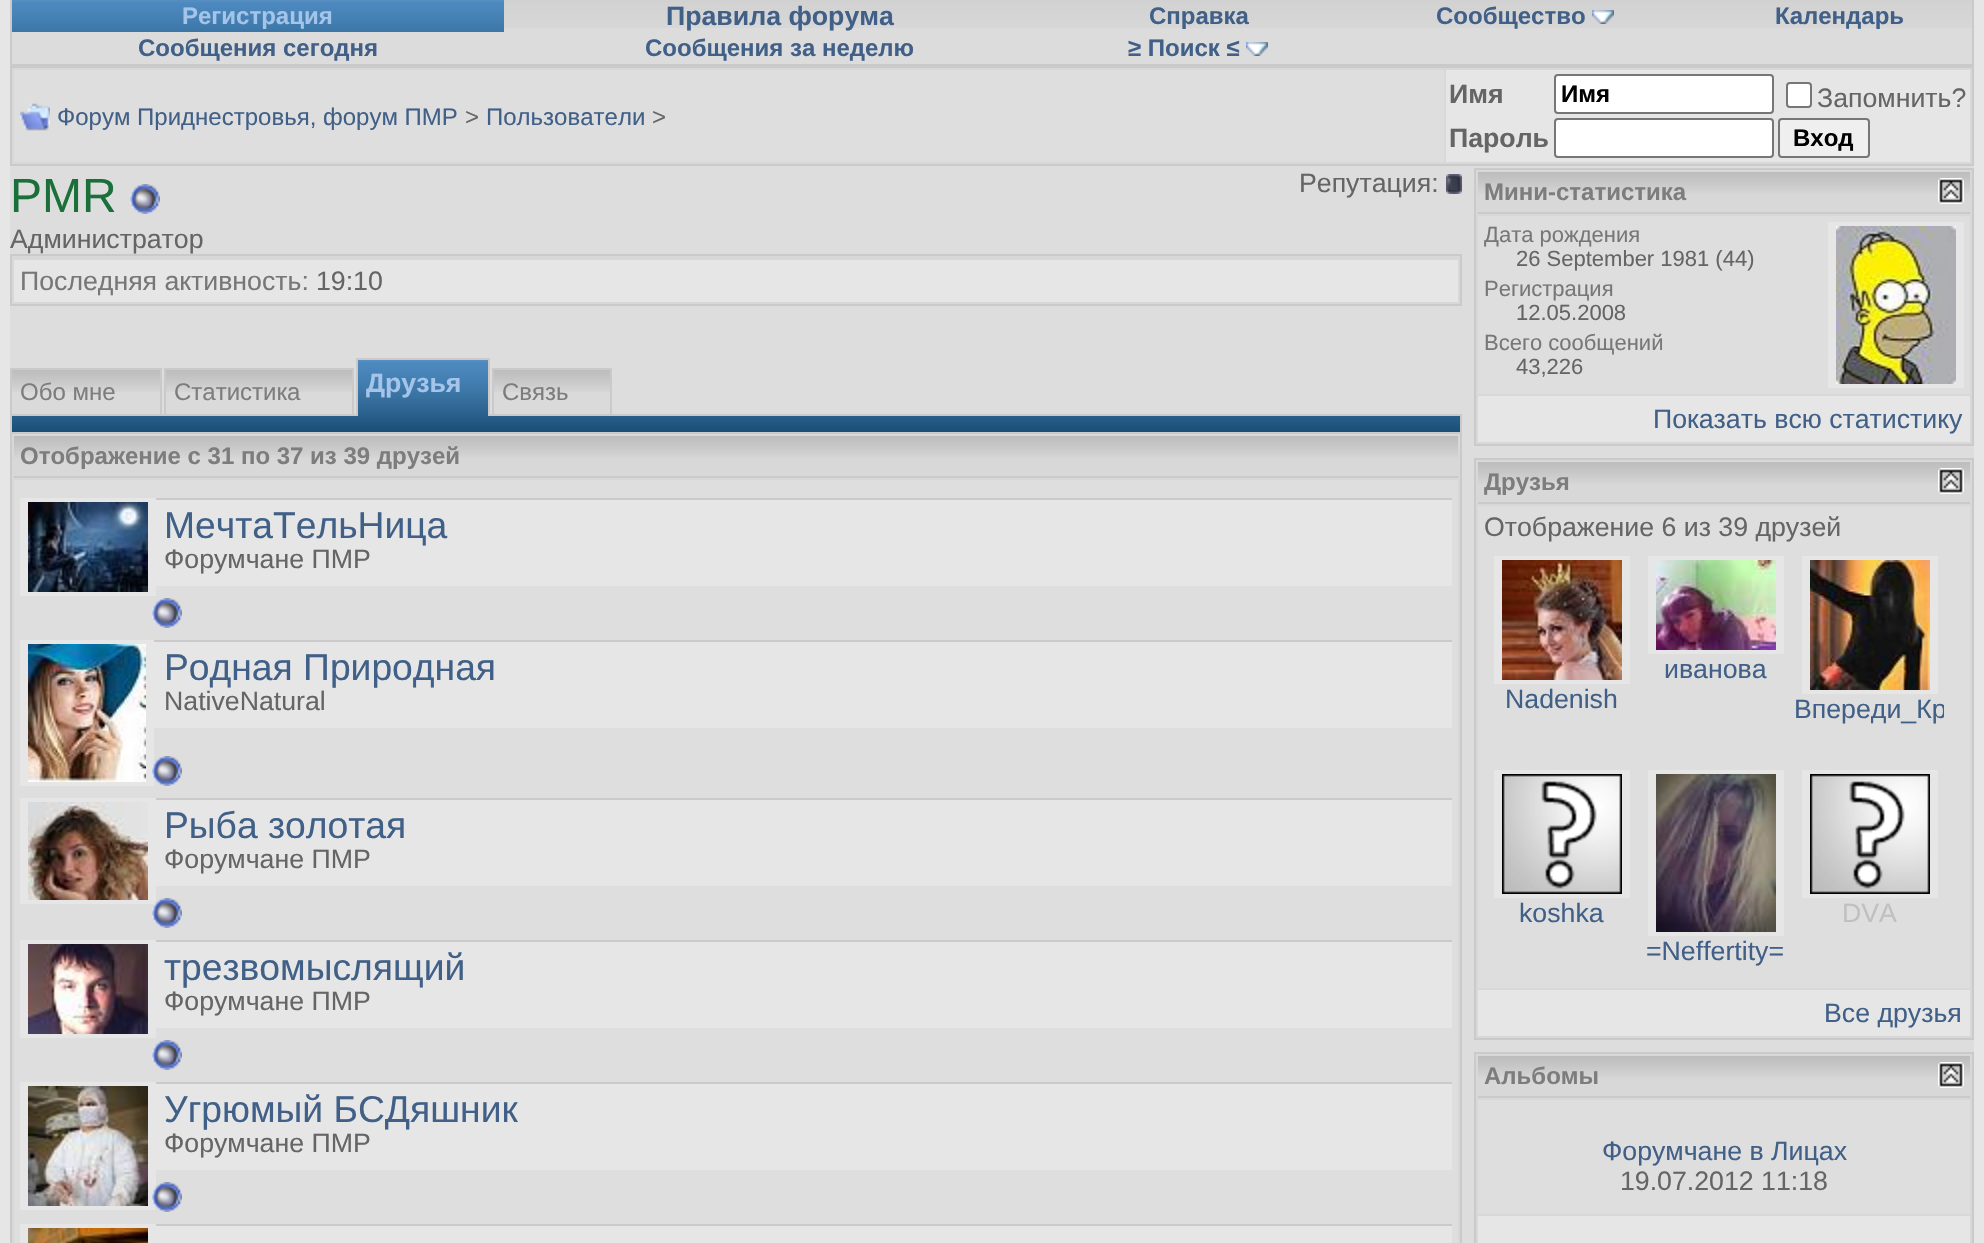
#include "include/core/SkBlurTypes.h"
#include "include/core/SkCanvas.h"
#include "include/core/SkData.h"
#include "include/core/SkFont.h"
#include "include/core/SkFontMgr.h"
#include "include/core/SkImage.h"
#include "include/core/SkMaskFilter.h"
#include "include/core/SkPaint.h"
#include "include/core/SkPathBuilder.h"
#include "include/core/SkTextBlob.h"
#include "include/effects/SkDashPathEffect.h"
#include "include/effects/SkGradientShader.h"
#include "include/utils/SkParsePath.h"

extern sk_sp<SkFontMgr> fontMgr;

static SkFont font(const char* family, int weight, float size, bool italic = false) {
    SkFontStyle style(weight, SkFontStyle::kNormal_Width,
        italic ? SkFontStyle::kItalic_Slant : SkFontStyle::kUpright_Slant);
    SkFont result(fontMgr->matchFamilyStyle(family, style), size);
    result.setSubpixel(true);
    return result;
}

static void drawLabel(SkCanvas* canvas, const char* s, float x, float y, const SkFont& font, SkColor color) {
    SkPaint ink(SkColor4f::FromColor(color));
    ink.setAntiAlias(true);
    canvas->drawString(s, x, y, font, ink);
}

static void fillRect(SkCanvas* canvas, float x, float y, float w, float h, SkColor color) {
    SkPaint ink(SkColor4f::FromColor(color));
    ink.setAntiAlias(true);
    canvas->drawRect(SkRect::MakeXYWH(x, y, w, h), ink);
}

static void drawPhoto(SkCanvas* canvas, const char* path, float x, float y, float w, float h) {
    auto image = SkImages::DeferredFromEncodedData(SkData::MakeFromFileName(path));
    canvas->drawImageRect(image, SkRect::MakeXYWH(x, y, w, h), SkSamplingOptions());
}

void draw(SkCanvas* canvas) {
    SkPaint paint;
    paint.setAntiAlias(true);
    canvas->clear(0xFFE6E6E6);
    fillRect(canvas, 10, 166, 1964, 1077, 0xFFDDDDDD);
    fillRect(canvas, 12, 28, 1960, 36, 0xFFDCDCDC);
    drawPhoto(canvas, "assets/img1.png", 504, 0, 1468, 28);
    paint.setStroke(true);
    paint.setStrokeWidth(2);
    paint.setColor(0xFFCBC9C9);
    canvas->drawRect(SkRect::MakeXYWH(11, -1, 1962, 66), paint);
    drawPhoto(canvas, "assets/img2.png", 12, 0, 492, 32);
    SkFont font1 = font("Liberation Sans", 700, 24);
    drawLabel(canvas, "Регистрация", 182, 24, font1, 0xFFA5C4E9);
    SkFont font2 = font("Liberation Sans", 700, 26.7f);
    drawLabel(canvas, "Правила форума", 666, 25, font2, 0xFF416088);
    drawLabel(canvas, "Справка", 1149, 24, font1, 0xFF416088);
    drawLabel(canvas, "Сообщество", 1436, 24, font1, 0xFF416088);
    drawPhoto(canvas, "assets/img3.png", 1592, 10, 22, 14);
    drawLabel(canvas, "Календарь", 1775, 24, font1, 0xFF416088);
    drawLabel(canvas, "Сообщения сегодня", 138, 56, font1, 0xFF416088);
    drawLabel(canvas, "Сообщения за неделю", 645, 56, font1, 0xFF416088);
    drawLabel(canvas, "≥ Поиск ≤", 1128, 56, font1, 0xFF416088);
    drawPhoto(canvas, "assets/img4.png", 1246, 42, 22, 14);
    paint.setStroke(false);
    paint.setColor(0xFFD8D8D8);
    canvas->drawRect(SkRect::MakeXYWH(11, 67, 1962, 98), paint);
    paint.setStroke(true);
    paint.setColor(0xFFCBC9C9);
    canvas->drawRect(SkRect::MakeXYWH(11, 67, 1962, 98), paint);
    fillRect(canvas, 14, 70, 1430, 92, 0xFFDFDEDE);
    drawPhoto(canvas, "assets/img5.png", 20, 103, 30, 28);
    SkFont font3 = font("Liberation Sans", 400, 24);
    drawLabel(canvas, "Форум Приднестровья, форум ПМР", 57, 125, font3, 0xFF416088);
    drawLabel(canvas, ">", 465, 125, font3, 0xFF656565);
    drawLabel(canvas, "Пользователи", 486, 125, font3, 0xFF416088);
    drawLabel(canvas, ">", 652, 125, font3, 0xFF656565);
    fillRect(canvas, 1446, 70, 524, 92, 0xFFE6E6E6);
    drawLabel(canvas, "Имя", 1449, 103, font2, 0xFF656565);
    paint.setStroke(false);
    paint.setColor(0xFFFFFFFF);
    canvas->drawRoundRect(SkRect::MakeXYWH(1555, 75, 218, 38), 3, 3, paint);
    paint.setStroke(true);
    paint.setColor(0xFF767676);
    canvas->drawRoundRect(SkRect::MakeXYWH(1555, 75, 218, 38), 3, 3, paint);
    drawLabel(canvas, "Имя", 1561, 102, font1, 0xFF000000);
    paint.setStroke(false);
    paint.setColor(0xFFFFFFFF);
    canvas->drawRoundRect(SkRect::MakeXYWH(1787, 83, 24, 24), 3, 3, paint);
    paint.setStroke(true);
    paint.setColor(0xFF767676);
    canvas->drawRoundRect(SkRect::MakeXYWH(1787, 83, 24, 24), 3, 3, paint);
    SkFont font4 = font("Liberation Sans", 400, 26.7f);
    drawLabel(canvas, "Запомнить?", 1817, 107, font4, 0xFF656565);
    drawLabel(canvas, "Пароль", 1449, 147, font2, 0xFF656565);
    paint.setStroke(false);
    paint.setColor(0xFFFFFFFF);
    canvas->drawRoundRect(SkRect::MakeXYWH(1555, 119, 218, 38), 3, 3, paint);
    paint.setStroke(true);
    paint.setColor(0xFF767676);
    canvas->drawRoundRect(SkRect::MakeXYWH(1555, 119, 218, 38), 3, 3, paint);
    paint.setStroke(false);
    paint.setColor(0xFFEFEFEF);
    canvas->drawRoundRect(SkRect::MakeXYWH(1779, 119, 90, 38), 3, 3, paint);
    paint.setStroke(true);
    paint.setColor(0xFF767676);
    canvas->drawRoundRect(SkRect::MakeXYWH(1779, 119, 90, 38), 3, 3, paint);
    drawLabel(canvas, "Вход", 1793, 146, font1, 0xFF000000);
    SkFont font5 = font("Liberation Sans", 400, 48);
    drawLabel(canvas, "PMR", 10, 212, font5, 0xFF1B703A);
    drawPhoto(canvas, "assets/img6.png", 130, 184, 30, 30);
    drawLabel(canvas, "Репутация:", 1299, 192, font4, 0xFF656565);
    drawPhoto(canvas, "assets/img7.png", 1446, 174, 16, 20);
    drawLabel(canvas, "Администратор", 10, 248, font4, 0xFF656565);
    paint.setStroke(false);
    paint.setColor(0xFFD8D8D8);
    canvas->drawRect(SkRect::MakeXYWH(11, 255, 1450, 50), paint);
    paint.setStroke(true);
    paint.setColor(0xFFCBC9C9);
    canvas->drawRect(SkRect::MakeXYWH(11, 255, 1450, 50), paint);
    fillRect(canvas, 14, 260, 1444, 42, 0xFFE6E6E6);
    drawLabel(canvas, "Последняя активность:", 20, 290, font4, 0xFF777777);
    drawLabel(canvas, "19:10", 316, 290, font4, 0xFF656565);
    fillRect(canvas, 12, 392, 148, 22, 0xFFDADADA);
    drawPhoto(canvas, "assets/img8.png", 12, 370, 148, 22);
    fillRect(canvas, 10, 414, 2, 18, 0xFFCBC9C9);
    canvas->drawRect(SkRect::MakeXYWH(11, 369, 150, 46), paint);
    drawLabel(canvas, "Обо мне", 20, 400, font3, 0xFF7D7D7D);
    fillRect(canvas, 166, 392, 186, 22, 0xFFDADADA);
    drawPhoto(canvas, "assets/img9.png", 166, 370, 186, 22);
    fillRect(canvas, 162, 414, 1300, 2, 0xFFCBC9C9);
    canvas->drawRect(SkRect::MakeXYWH(165, 369, 188, 46), paint);
    drawLabel(canvas, "Статистика", 174, 400, font3, 0xFF7D7D7D);
    drawPhoto(canvas, "assets/img10.png", 358, 360, 130, 56);
    fillRect(canvas, 356, 358, 134, 2, 0xFFCBC9C9);
    fillRect(canvas, 488, 358, 2, 58, 0xFFCBC9C9);
    fillRect(canvas, 356, 358, 2, 58, 0xFFCBC9C9);
    drawLabel(canvas, "Друзья", 366, 392, font2, 0xFFA5C4E9);
    fillRect(canvas, 494, 392, 116, 22, 0xFFDADADA);
    drawPhoto(canvas, "assets/img11.png", 494, 370, 116, 22);
    canvas->drawRect(SkRect::MakeXYWH(493, 369, 118, 46), paint);
    drawLabel(canvas, "Связь", 502, 400, font3, 0xFF7D7D7D);
    drawPhoto(canvas, "assets/img12.png", 12, 416, 1448, 16);
    fillRect(canvas, 1460, 414, 2, 18, 0xFFCBC9C9);
    paint.setStroke(false);
    paint.setColor(0xFFD8D8D8);
    canvas->drawRect(SkRect::MakeXYWH(11, 433, 1450, 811), paint);
    paint.setStroke(true);
    paint.setColor(0xFFCBC9C9);
    canvas->drawRect(SkRect::MakeXYWH(11, 433, 1450, 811), paint);
    drawPhoto(canvas, "assets/img13.png", 14, 436, 1444, 22);
    fillRect(canvas, 14, 476, 1444, 2, 0xFFCBC9C9);
    drawLabel(canvas, "Отображение с 31 по 37 из 39 друзей", 20, 464, font1, 0xFF7D7D7D);
    fillRect(canvas, 14, 480, 1444, 763, 0xFFDFDEDE);
    fillRect(canvas, 152, 498, 1300, 2, 0xFFCBC9C9);
    fillRect(canvas, 20, 498, 136, 98, 0xFFE6E6E6);
    drawPhoto(canvas, "assets/img14.png", 28, 502, 120, 90);
    fillRect(canvas, 156, 500, 1296, 86, 0xFFE6E6E6);
    SkFont font6 = font("Liberation Sans", 400, 37.25f);
    drawLabel(canvas, "МечтаТельНица", 164, 538, font6, 0xFF416088);
    drawLabel(canvas, "Форумчане ПМР", 164, 568, font4, 0xFF656565);
    drawPhoto(canvas, "assets/img15.png", 152, 598, 30, 30);
    fillRect(canvas, 152, 640, 1300, 2, 0xFFCBC9C9);
    fillRect(canvas, 20, 640, 134, 146, 0xFFE6E6E6);
    drawPhoto(canvas, "assets/img16.png", 28, 644, 118, 138);
    fillRect(canvas, 154, 642, 1298, 86, 0xFFE6E6E6);
    drawLabel(canvas, "Родная Природная", 164, 680, font6, 0xFF416088);
    drawLabel(canvas, "NativeNatural", 164, 710, font4, 0xFF656565);
    drawPhoto(canvas, "assets/img17.png", 152, 756, 30, 30);
    fillRect(canvas, 152, 798, 1300, 2, 0xFFCBC9C9);
    fillRect(canvas, 20, 798, 136, 106, 0xFFE6E6E6);
    drawPhoto(canvas, "assets/img18.png", 28, 802, 120, 98);
    fillRect(canvas, 156, 800, 1296, 86, 0xFFE6E6E6);
    drawLabel(canvas, "Рыба золотая", 164, 838, font6, 0xFF416088);
    drawLabel(canvas, "Форумчане ПМР", 164, 868, font4, 0xFF656565);
    drawPhoto(canvas, "assets/img19.png", 152, 898, 30, 30);
    fillRect(canvas, 152, 940, 1300, 2, 0xFFCBC9C9);
    fillRect(canvas, 20, 940, 136, 98, 0xFFE6E6E6);
    drawPhoto(canvas, "assets/img20.png", 28, 944, 120, 90);
    fillRect(canvas, 156, 942, 1296, 86, 0xFFE6E6E6);
    drawLabel(canvas, "трезвомыслящий", 164, 980, font6, 0xFF416088);
    drawLabel(canvas, "Форумчане ПМР", 164, 1010, font4, 0xFF656565);
    drawPhoto(canvas, "assets/img15.png", 152, 1040, 30, 30);
    fillRect(canvas, 152, 1082, 1300, 2, 0xFFCBC9C9);
    fillRect(canvas, 20, 1082, 136, 128, 0xFFE6E6E6);
    drawPhoto(canvas, "assets/img21.png", 28, 1086, 120, 120);
    fillRect(canvas, 156, 1084, 1296, 86, 0xFFE6E6E6);
    drawLabel(canvas, "Угрюмый БСДяшник", 164, 1122, font6, 0xFF416088);
    drawLabel(canvas, "Форумчане ПМР", 164, 1152, font4, 0xFF656565);
    drawPhoto(canvas, "assets/img22.png", 152, 1182, 30, 30);
    fillRect(canvas, 152, 1224, 1300, 2, 0xFFCBC9C9);
    fillRect(canvas, 20, 1224, 136, 19, 0xFFE6E6E6);
    drawPhoto(canvas, "assets/img23.png", 28, 1228, 120, 15);
    fillRect(canvas, 156, 1226, 1296, 17, 0xFFE6E6E6);
    paint.setStroke(false);
    paint.setColor(0xFFD8D8D8);
    canvas->drawRect(SkRect::MakeXYWH(1475, 169, 498, 276), paint);
    paint.setStroke(true);
    paint.setColor(0xFFCBC9C9);
    canvas->drawRect(SkRect::MakeXYWH(1475, 169, 498, 276), paint);
    drawPhoto(canvas, "assets/img24.png", 1478, 172, 492, 22);
    fillRect(canvas, 1478, 212, 492, 2, 0xFFCBC9C9);
    drawLabel(canvas, "Мини-статистика", 1484, 200, font1, 0xFF7D7D7D);
    drawPhoto(canvas, "assets/img25.png", 1938, 178, 26, 26);
    fillRect(canvas, 1478, 216, 492, 178, 0xFFDFDEDE);
    SkFont font7 = font("Liberation Sans", 400, 22);
    drawLabel(canvas, "Дата рождения", 1484, 242, font7, 0xFF777777);
    drawLabel(canvas, "26 September 1981 (44)", 1516, 266, font7, 0xFF656565);
    drawLabel(canvas, "Регистрация", 1484, 296, font7, 0xFF777777);
    drawLabel(canvas, "12.05.2008", 1516, 320, font7, 0xFF656565);
    drawLabel(canvas, "Всего сообщений", 1484, 350, font7, 0xFF777777);
    drawLabel(canvas, "43,226", 1516, 374, font7, 0xFF656565);
    fillRect(canvas, 1828, 222, 136, 166, 0xFFE6E6E6);
    drawPhoto(canvas, "assets/img26.png", 1836, 226, 120, 158);
    fillRect(canvas, 1478, 396, 492, 46, 0xFFE6E6E6);
    drawLabel(canvas, "Показать всю статистику", 1653, 428, font4, 0xFF416088);
    paint.setStroke(false);
    paint.setColor(0xFFD8D8D8);
    canvas->drawRect(SkRect::MakeXYWH(1475, 459, 498, 580), paint);
    paint.setStroke(true);
    paint.setColor(0xFFCBC9C9);
    canvas->drawRect(SkRect::MakeXYWH(1475, 459, 498, 580), paint);
    drawPhoto(canvas, "assets/img24.png", 1478, 462, 492, 22);
    fillRect(canvas, 1478, 502, 492, 2, 0xFFCBC9C9);
    drawLabel(canvas, "Друзья", 1484, 490, font1, 0xFF7D7D7D);
    drawPhoto(canvas, "assets/img25.png", 1938, 468, 26, 26);
    fillRect(canvas, 1478, 506, 492, 482, 0xFFDFDEDE);
    drawLabel(canvas, "Отображение 6 из 39 друзей", 1484, 536, font4, 0xFF656565);
    fillRect(canvas, 1648, 556, 136, 98, 0xFFE6E6E6);
    drawPhoto(canvas, "assets/img27.png", 1656, 560, 120, 90);
    drawLabel(canvas, "иванова", 1664, 678, font4, 0xFF416088);
    fillRect(canvas, 1494, 556, 136, 128, 0xFFE6E6E6);
    drawPhoto(canvas, "assets/img28.png", 1502, 560, 120, 120);
    drawLabel(canvas, "Nadenish", 1505, 708, font4, 0xFF416088);
    fillRect(canvas, 1802, 556, 136, 138, 0xFFE6E6E6);
    drawPhoto(canvas, "assets/img29.png", 1810, 560, 120, 130);
    canvas->save();
    canvas->clipRect(SkRect::MakeXYWH(1794, 556, 150, 210));
    drawLabel(canvas, "Впереди_Кр", 1794, 718, font4, 0xFF416088);
    canvas->restore();
    fillRect(canvas, 1494, 770, 136, 128, 0xFFE6E6E6);
    drawPhoto(canvas, "assets/img30.png", 1502, 774, 120, 120);
    drawLabel(canvas, "koshka", 1519, 922, font4, 0xFF416088);
    fillRect(canvas, 1802, 770, 136, 128, 0xFFE6E6E6);
    drawPhoto(canvas, "assets/img30.png", 1810, 774, 120, 120);
    drawLabel(canvas, "DVA", 1842, 922, font4, 0xFFC0C0C0);
    fillRect(canvas, 1648, 770, 136, 166, 0xFFE6E6E6);
    drawPhoto(canvas, "assets/img31.png", 1656, 774, 120, 158);
    drawLabel(canvas, "=Neffertity=", 1646, 960, font4, 0xFF416088);
    fillRect(canvas, 1478, 990, 492, 46, 0xFFE6E6E6);
    drawLabel(canvas, "Все друзья", 1824, 1022, font4, 0xFF416088);
    paint.setStroke(false);
    paint.setColor(0xFFD8D8D8);
    canvas->drawRect(SkRect::MakeXYWH(1475, 1053, 498, 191), paint);
    paint.setStroke(true);
    paint.setColor(0xFFCBC9C9);
    canvas->drawRect(SkRect::MakeXYWH(1475, 1053, 498, 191), paint);
    drawPhoto(canvas, "assets/img24.png", 1478, 1056, 492, 22);
    fillRect(canvas, 1478, 1096, 492, 2, 0xFFCBC9C9);
    drawLabel(canvas, "Альбомы", 1484, 1084, font1, 0xFF7D7D7D);
    drawPhoto(canvas, "assets/img25.png", 1938, 1062, 26, 26);
    fillRect(canvas, 1478, 1100, 492, 114, 0xFFDFDEDE);
    drawLabel(canvas, "Форумчане в Лицах", 1602, 1160, font4, 0xFF416088);
    drawLabel(canvas, "19.07.2012 11:18", 1620, 1190, font4, 0xFF656565);
    fillRect(canvas, 1478, 1216, 492, 27, 0xFFE6E6E6);
}
